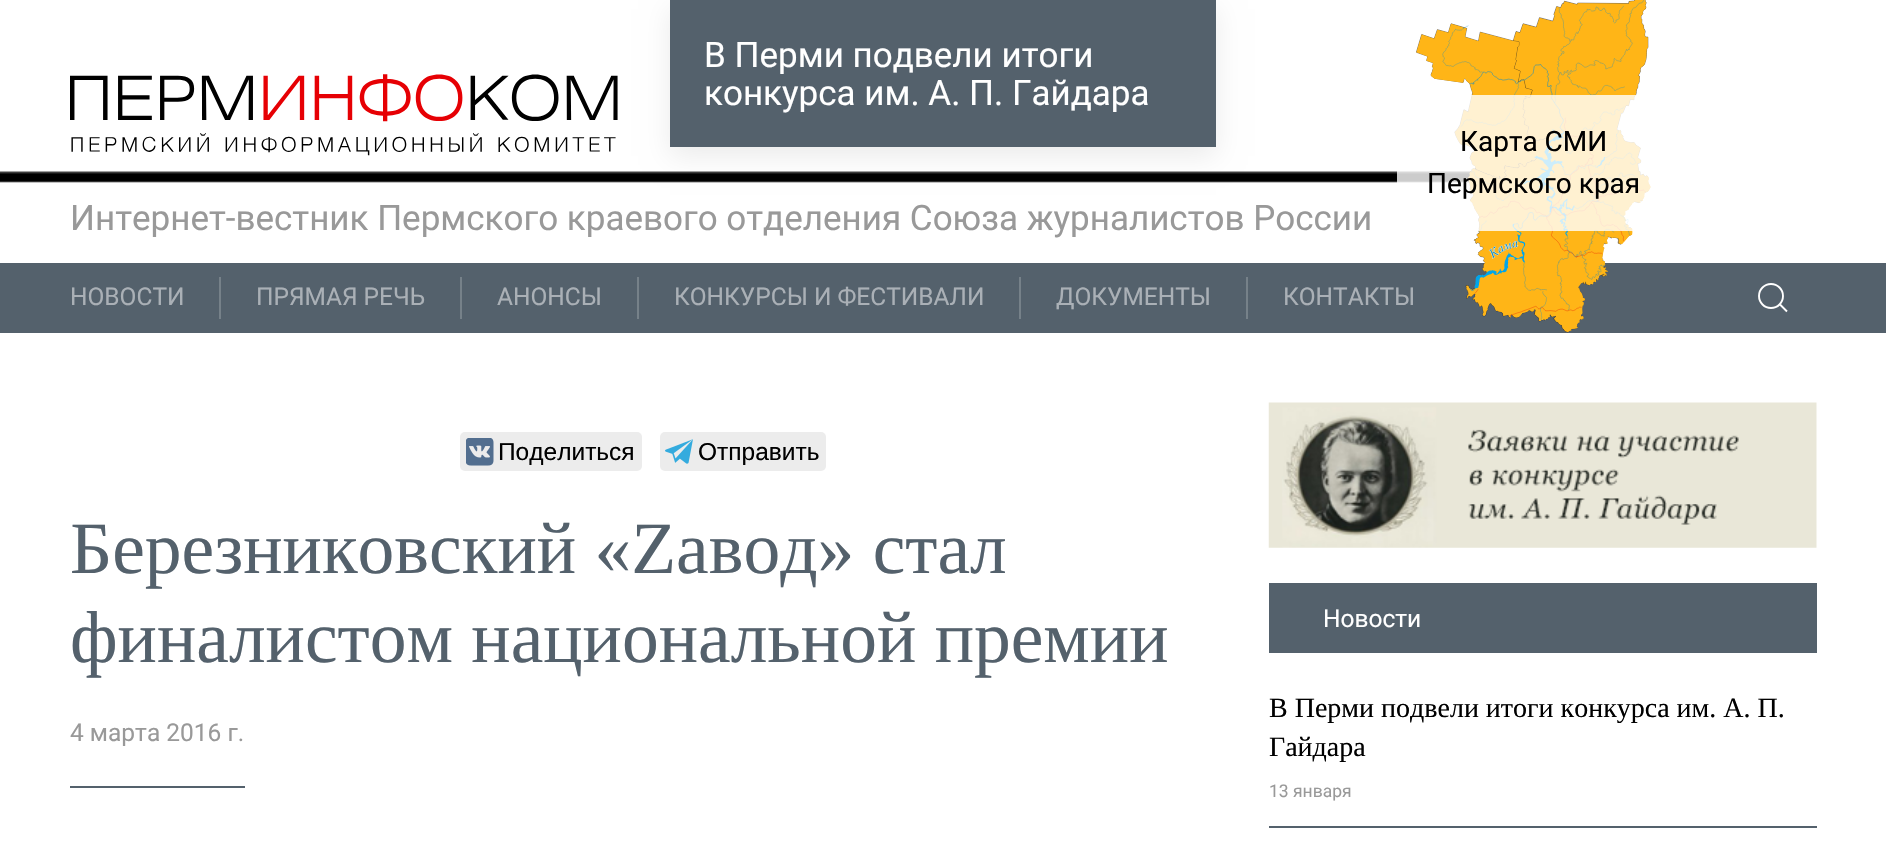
#include "include/core/SkBlurTypes.h"
#include "include/core/SkCanvas.h"
#include "include/core/SkData.h"
#include "include/core/SkFont.h"
#include "include/core/SkFontMgr.h"
#include "include/core/SkImage.h"
#include "include/core/SkMaskFilter.h"
#include "include/core/SkPaint.h"
#include "include/core/SkPathBuilder.h"
#include "include/core/SkTextBlob.h"
#include "include/effects/SkDashPathEffect.h"
#include "include/effects/SkGradientShader.h"
#include "include/utils/SkParsePath.h"

extern sk_sp<SkFontMgr> fontMgr;

static SkFont font(const char* family, int weight, float size, bool italic = false) {
    SkFontStyle style(weight, SkFontStyle::kNormal_Width,
        italic ? SkFontStyle::kItalic_Slant : SkFontStyle::kUpright_Slant);
    SkFont result(fontMgr->matchFamilyStyle(family, style), size);
    result.setSubpixel(true);
    return result;
}

static void drawLabel(SkCanvas* canvas, const char* s, float x, float y, const SkFont& font, SkColor color) {
    SkPaint ink(SkColor4f::FromColor(color));
    ink.setAntiAlias(true);
    canvas->drawString(s, x, y, font, ink);
}

static void fillRect(SkCanvas* canvas, float x, float y, float w, float h, SkColor color) {
    SkPaint ink(SkColor4f::FromColor(color));
    ink.setAntiAlias(true);
    canvas->drawRect(SkRect::MakeXYWH(x, y, w, h), ink);
}

static void fillRRect(SkCanvas* canvas, float x, float y, float w, float h, float radius, SkColor color) {
    SkPaint ink(SkColor4f::FromColor(color));
    ink.setAntiAlias(true);
    canvas->drawRoundRect(SkRect::MakeXYWH(x, y, w, h), radius, radius, ink);
}

static void drawPhoto(SkCanvas* canvas, const char* path, float x, float y, float w, float h) {
    auto image = SkImages::DeferredFromEncodedData(SkData::MakeFromFileName(path));
    canvas->drawImageRect(image, SkRect::MakeXYWH(x, y, w, h), SkSamplingOptions());
}

static SkPath parsePath(const char* data, bool evenOdd = false) {
    SkPath result = *SkParsePath::FromSVGString(data);
    if (evenOdd) result.setFillType(SkPathFillType::kEvenOdd);
    return result;
}

void draw(SkCanvas* canvas) {
    SkPaint paint;
    paint.setAntiAlias(true);
    canvas->clear(0xFF54616C);
    fillRect(canvas, 0, 0, 1886, 263, 0xFFFFFFFF);
    drawPhoto(canvas, "assets/img1.png", 70, 74, 548, 82);
    drawPhoto(canvas, "assets/img3.png", 0, 162, 1529, 21);
    paint.setColor(0x14000000);
    paint.setMaskFilter(SkMaskFilter::MakeBlur(kNormal_SkBlurStyle, 13));
    canvas->drawRect(SkRect::MakeXYWH(670, 9, 546, 147), paint);
    paint.setMaskFilter(nullptr);
    fillRect(canvas, 670, 0, 546, 147, 0xFF54616C);
    SkFont font1 = font("Roboto", 400, 35);
    drawLabel(canvas, "В Перми подвели итоги", 704, 67, font1, 0xFFFFFFFF);
    drawLabel(canvas, "конкурса им. А. П. Гайдара", 704, 105, font1, 0xFFFFFFFF);
    drawPhoto(canvas, "assets/img2.png", 1416, 0, 235, 333);
    fillRect(canvas, 1397, 95, 254, 136, 0xCCFFFFFF);
    SkFont font2 = font("Roboto", 400, 28);
    drawLabel(canvas, "Карта СМИ", 1460, 151, font2, 0xFF000000);
    drawLabel(canvas, "Пермского края", 1427, 193, font2, 0xFF000000);
    drawLabel(canvas, "Интернет-вестник Пермского краевого отделения Союза журналистов России", 70, 230, font1, 0xFF999999);
    SkFont font3 = font("Roboto", 400, 24.5f);
    drawLabel(canvas, "НОВОСТИ", 70, 305, font3, 0xFFAAB0B6);
    fillRect(canvas, 219, 277, 2, 42, 0xFF768189);
    drawLabel(canvas, "ПРЯМАЯ РЕЧЬ", 256, 305, font3, 0xFFAAB0B6);
    fillRect(canvas, 460, 277, 2, 42, 0xFF768189);
    drawLabel(canvas, "АНОНСЫ", 497, 305, font3, 0xFFAAB0B6);
    fillRect(canvas, 637, 277, 2, 42, 0xFF768189);
    drawLabel(canvas, "КОНКУРСЫ И ФЕСТИВАЛИ", 674, 305, font3, 0xFFAAB0B6);
    fillRect(canvas, 1019, 277, 2, 42, 0xFF768189);
    drawLabel(canvas, "ДОКУМЕНТЫ", 1056, 305, font3, 0xFFAAB0B6);
    fillRect(canvas, 1246, 277, 2, 42, 0xFF768189);
    drawLabel(canvas, "КОНТАКТЫ", 1283, 305, font3, 0xFFAAB0B6);
    paint.setStroke(true);
    paint.setStrokeWidth(1.9f);
    paint.setColor(0xFFFFFFFF);
    canvas->drawCircle(1771, 296, 12, paint);
    canvas->drawPath(parsePath("M1780 304.5L1787 311.5Z"), paint);
    fillRect(canvas, 0, 333, 1886, 527, 0xFFFFFFFF);
    fillRRect(canvas, 460, 432, 182, 39, 5, 0xFFECECEC);
    drawPhoto(canvas, "assets/img4.png", 466, 438, 28, 28);
    SkFont font4 = font("Liberation Sans", 400, 24.5f);
    drawLabel(canvas, "Поделиться", 498, 460, font4, 0xFF000000);
    fillRRect(canvas, 660, 432, 166, 39, 5, 0xFFECECEC);
    drawPhoto(canvas, "assets/img5.png", 665, 439, 28, 25);
    drawLabel(canvas, "Отправить", 698, 460, font4, 0xFF000000);
    SkFont font5 = font("Liberation Serif", 400, 73.5f);
    drawLabel(canvas, "Березниковский «Zавод» стал", 70, 573, font5, 0xFF54616C);
    drawLabel(canvas, "финалистом национальной премии", 70, 662, font5, 0xFF54616C);
    drawLabel(canvas, "4 марта 2016 г.", 70, 741, font3, 0xFF999999);
    fillRect(canvas, 70, 786, 175, 2, 0xFF54616C);
    drawPhoto(canvas, "assets/img6.png", 1268, 402, 549, 146);
    fillRect(canvas, 1269, 583, 548, 70, 0xFF54616C);
    drawLabel(canvas, "Новости", 1323, 627, font3, 0xFFFFFFFF);
    SkFont font6 = font("Liberation Serif", 400, 28);
    drawLabel(canvas, "В Перми подвели итоги конкурса им. А. П.", 1269, 717, font6, 0xFF000000);
    drawLabel(canvas, "Гайдара", 1269, 756, font6, 0xFF000000);
    SkFont font7 = font("Roboto", 400, 17.5f);
    drawLabel(canvas, "13 января", 1269, 797, font7, 0xFF999999);
    fillRect(canvas, 1269, 826, 548, 2, 0xFF54616C);
}
